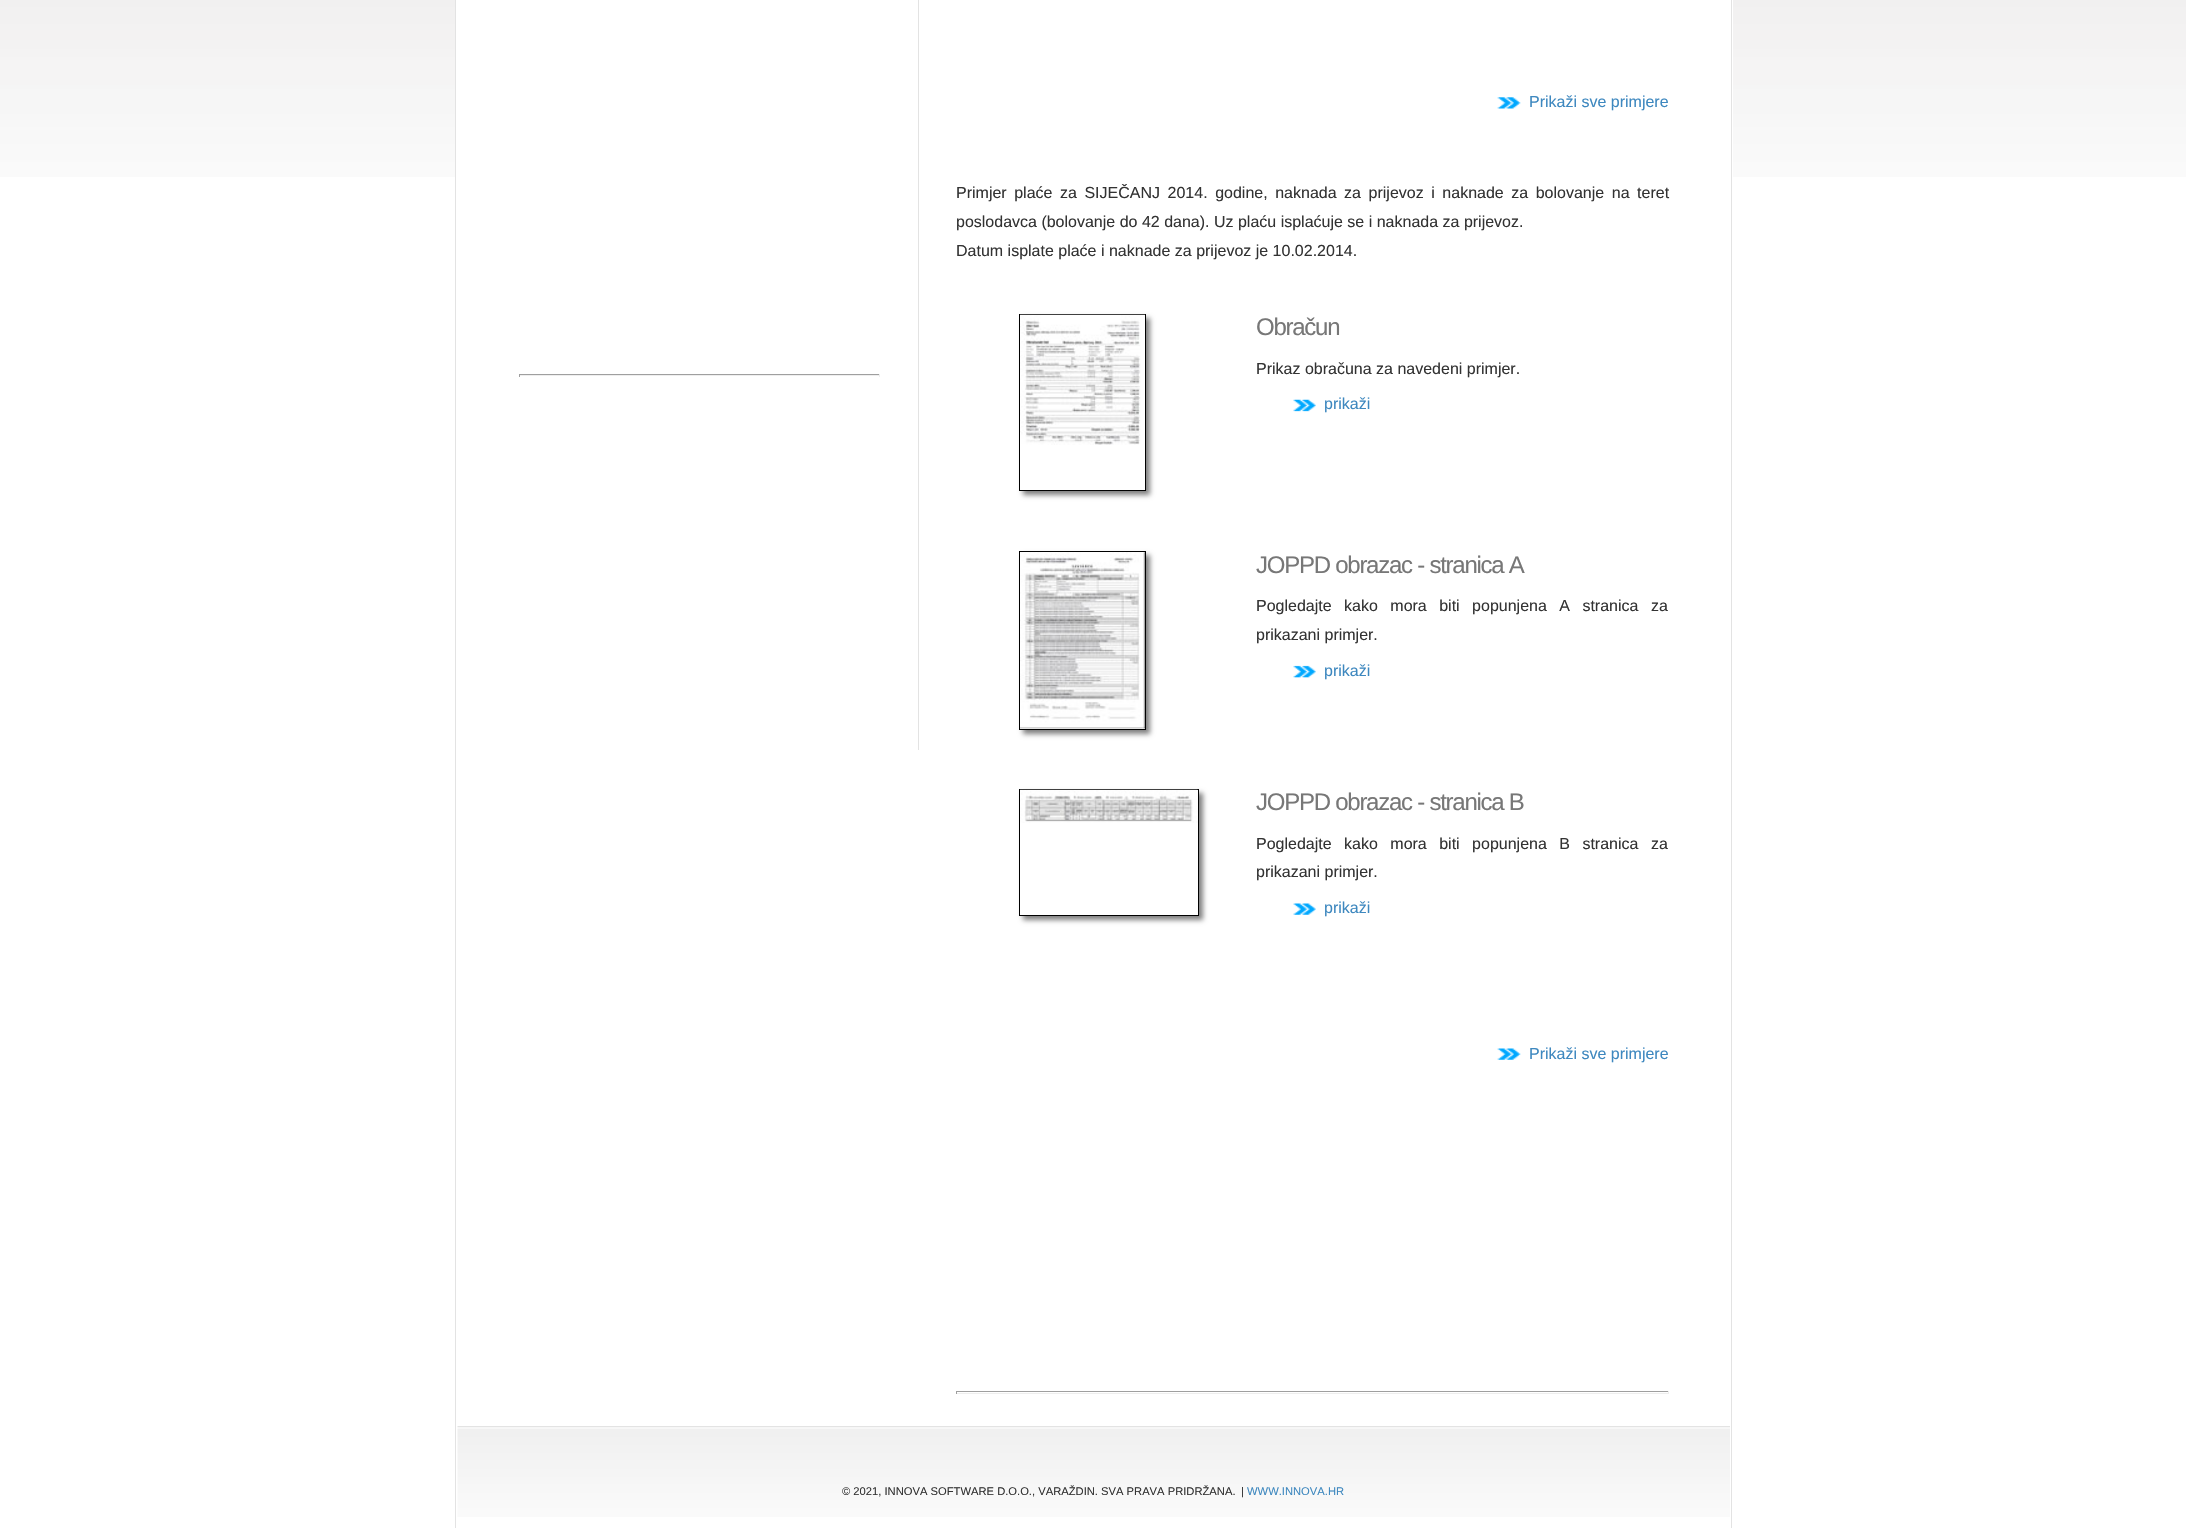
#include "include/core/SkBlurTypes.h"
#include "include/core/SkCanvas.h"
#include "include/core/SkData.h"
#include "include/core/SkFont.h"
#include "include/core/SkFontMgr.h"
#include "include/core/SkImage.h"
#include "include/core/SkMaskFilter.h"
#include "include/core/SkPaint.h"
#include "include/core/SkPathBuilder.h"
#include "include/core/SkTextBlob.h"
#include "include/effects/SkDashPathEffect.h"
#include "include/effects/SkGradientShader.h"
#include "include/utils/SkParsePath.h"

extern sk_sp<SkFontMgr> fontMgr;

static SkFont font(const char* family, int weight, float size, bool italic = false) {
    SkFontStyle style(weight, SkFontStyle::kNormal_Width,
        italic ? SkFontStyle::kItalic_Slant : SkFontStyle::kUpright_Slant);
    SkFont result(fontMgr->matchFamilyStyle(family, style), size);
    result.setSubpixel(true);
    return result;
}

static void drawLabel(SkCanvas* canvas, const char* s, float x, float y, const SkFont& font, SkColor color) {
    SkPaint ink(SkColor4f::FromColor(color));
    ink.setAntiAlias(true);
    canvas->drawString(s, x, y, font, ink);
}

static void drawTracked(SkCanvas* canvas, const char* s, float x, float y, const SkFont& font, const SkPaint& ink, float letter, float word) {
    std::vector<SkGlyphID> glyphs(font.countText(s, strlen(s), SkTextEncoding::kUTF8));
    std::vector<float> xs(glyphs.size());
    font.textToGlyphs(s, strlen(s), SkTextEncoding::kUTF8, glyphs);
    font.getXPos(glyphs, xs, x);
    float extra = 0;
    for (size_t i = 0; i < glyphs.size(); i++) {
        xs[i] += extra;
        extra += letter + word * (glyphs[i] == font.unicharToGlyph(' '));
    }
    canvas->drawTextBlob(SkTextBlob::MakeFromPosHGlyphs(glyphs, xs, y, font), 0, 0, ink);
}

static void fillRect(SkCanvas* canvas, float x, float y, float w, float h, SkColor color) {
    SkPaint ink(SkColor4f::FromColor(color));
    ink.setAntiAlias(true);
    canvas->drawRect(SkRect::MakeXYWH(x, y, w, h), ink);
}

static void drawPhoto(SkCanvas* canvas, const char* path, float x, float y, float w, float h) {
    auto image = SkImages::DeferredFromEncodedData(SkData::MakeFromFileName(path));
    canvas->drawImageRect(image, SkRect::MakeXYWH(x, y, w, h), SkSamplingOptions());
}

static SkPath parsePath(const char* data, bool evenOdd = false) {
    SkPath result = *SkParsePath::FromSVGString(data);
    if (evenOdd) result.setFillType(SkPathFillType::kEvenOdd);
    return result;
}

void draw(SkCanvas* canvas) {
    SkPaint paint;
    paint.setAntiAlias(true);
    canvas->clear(0xFFFFFFFF);
    drawPhoto(canvas, "assets/img1.png", 0, 0, 2186, 177);
    fillRect(canvas, 456, 0, 1277, 177, 0xFFFFFFFF);
    fillRect(canvas, 1731, 0, 1, 1528, 0xFFE3E3E3);
    fillRect(canvas, 455, 0, 1, 1528, 0xFFE3E3E3);
    fillRect(canvas, 918, 0, 1, 750, 0xFFE3E3E3);
    fillRect(canvas, 519, 374, 361, 1, 0xFF9F9F9F);
    fillRect(canvas, 879, 374, 1, 3, 0xFFEEEEEE);
    fillRect(canvas, 519, 375, 361, 1, 0xFFEEEEEE);
    fillRect(canvas, 519, 374, 1, 3, 0xFF9F9F9F);
    drawPhoto(canvas, "assets/img2.png", 1497, 97, 24, 12);
    SkFont font1 = font("Liberation Sans", 400, 16);
    drawLabel(canvas, "Prikaži sve primjere", 1529, 107, font1, 0xFF3E88BF);
    paint.setColor(0xFF333333);
    drawTracked(canvas, "Primjer plaće za SIJEČANJ 2014. godine, naknada za prijevoz i naknade za bolovanje na teret", 956, 198, font1, paint, 0, 3.1f);
    drawLabel(canvas, "poslodavca (bolovanje do 42 dana). Uz plaću isplaćuje se i naknada za prijevoz.", 956, 227, font1, 0xFF333333);
    drawLabel(canvas, "Datum isplate plaće i naknade za prijevoz je 10.02.2014.", 956, 256, font1, 0xFF333333);
    canvas->save();
    canvas->clipPath(parsePath("M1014 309H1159V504H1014ZM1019 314H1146V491H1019Z", true), true);
    paint.setColor(0xFF808080);
    paint.setMaskFilter(SkMaskFilter::MakeBlur(kNormal_SkBlurStyle, 2.5f));
    canvas->drawRect(SkRect::MakeXYWH(1023, 318, 127, 177), paint);
    paint.setMaskFilter(nullptr);
    canvas->restore();
    paint.setStroke(true);
    paint.setStrokeWidth(1);
    paint.setColor(0xFF000000);
    canvas->drawRect(SkRect::MakeXYWH(1019.5f, 314.5f, 126, 176), paint);
    drawPhoto(canvas, "assets/img3.png", 1020, 314, 125, 131);
    SkFont font2 = font("Liberation Sans", 400, 24);
    paint.setStroke(false);
    paint.setColor(0xFF777777);
    drawTracked(canvas, "Obračun", 1256, 335, font2, paint, -1.25f, 0);
    drawLabel(canvas, "Prikaz obračuna za navedeni primjer.", 1256, 374, font1, 0xFF333333);
    drawPhoto(canvas, "assets/img4.png", 1293, 399, 23, 13);
    drawLabel(canvas, "prikaži", 1324, 409, font1, 0xFF3E88BF);
    paint.setColor(0xFF808080);
    paint.setMaskFilter(SkMaskFilter::MakeBlur(kNormal_SkBlurStyle, 2.5f));
    canvas->drawRect(SkRect::MakeXYWH(1023, 555, 127, 179), paint);
    paint.setMaskFilter(nullptr);
    paint.setColor(0xFFFFFFFF);
    canvas->drawRect(SkRect::MakeXYWH(1019.5f, 551.5f, 126, 178), paint);
    paint.setStroke(true);
    paint.setColor(0xFF000000);
    canvas->drawRect(SkRect::MakeXYWH(1019.5f, 551.5f, 126, 178), paint);
    drawPhoto(canvas, "assets/img5.png", 1020, 552, 125, 177);
    paint.setStroke(false);
    paint.setColor(0xFF777777);
    drawTracked(canvas, "JOPPD obrazac - stranica A", 1256, 573, font2, paint, -1.25f, 0);
    paint.setColor(0xFF333333);
    drawTracked(canvas, "Pogledajte kako mora biti popunjena A stranica za", 1256, 611, font1, paint, 0, 8);
    drawLabel(canvas, "prikazani primjer.", 1256, 640, font1, 0xFF333333);
    drawPhoto(canvas, "assets/img6.png", 1293, 665, 23, 13);
    drawLabel(canvas, "prikaži", 1324, 676, font1, 0xFF3E88BF);
    paint.setColor(0xFF808080);
    paint.setMaskFilter(SkMaskFilter::MakeBlur(kNormal_SkBlurStyle, 2.5f));
    canvas->drawRect(SkRect::MakeXYWH(1023, 793, 180, 127), paint);
    paint.setMaskFilter(nullptr);
    paint.setColor(0xFFFFFFFF);
    canvas->drawRect(SkRect::MakeXYWH(1019.5f, 789.5f, 179, 126), paint);
    paint.setStroke(true);
    paint.setColor(0xFF000000);
    canvas->drawRect(SkRect::MakeXYWH(1019.5f, 789.5f, 179, 126), paint);
    drawPhoto(canvas, "assets/img7.png", 1020, 789, 178, 34);
    paint.setStroke(false);
    paint.setColor(0xFF777777);
    drawTracked(canvas, "JOPPD obrazac - stranica B", 1256, 810, font2, paint, -1.25f, 0);
    paint.setColor(0xFF333333);
    drawTracked(canvas, "Pogledajte kako mora biti popunjena B stranica za", 1256, 849, font1, paint, 0, 8);
    drawLabel(canvas, "prikazani primjer.", 1256, 877, font1, 0xFF333333);
    drawPhoto(canvas, "assets/img8.png", 1293, 903, 23, 12);
    drawLabel(canvas, "prikaži", 1324, 913, font1, 0xFF3E88BF);
    drawPhoto(canvas, "assets/img9.png", 1497, 1048, 24, 12);
    drawLabel(canvas, "Prikaži sve primjere", 1529, 1059, font1, 0xFF3E88BF);
    fillRect(canvas, 956, 1391, 713, 1, 0xFF9F9F9F);
    fillRect(canvas, 1668, 1391, 1, 3, 0xFFEEEEEE);
    fillRect(canvas, 956, 1393, 713, 1, 0xFFEEEEEE);
    fillRect(canvas, 956, 1391, 1, 3, 0xFF9F9F9F);
    drawPhoto(canvas, "assets/img10.png", 457, 1426, 1273, 91);
    SkFont font3 = font("Liberation Sans", 400, 11.2f);
    drawLabel(canvas, "© 2021, INNOVA SOFTWARE D.O.O., VARAŽDIN. SVA PRAVA PRIDRŽANA.", 842, 1495, font3, 0xFF333333);
    drawLabel(canvas, "|", 1241, 1495, font3, 0xFF333333);
    drawLabel(canvas, "WWW.INNOVA.HR", 1247, 1495, font3, 0xFF3E88BF);
}
